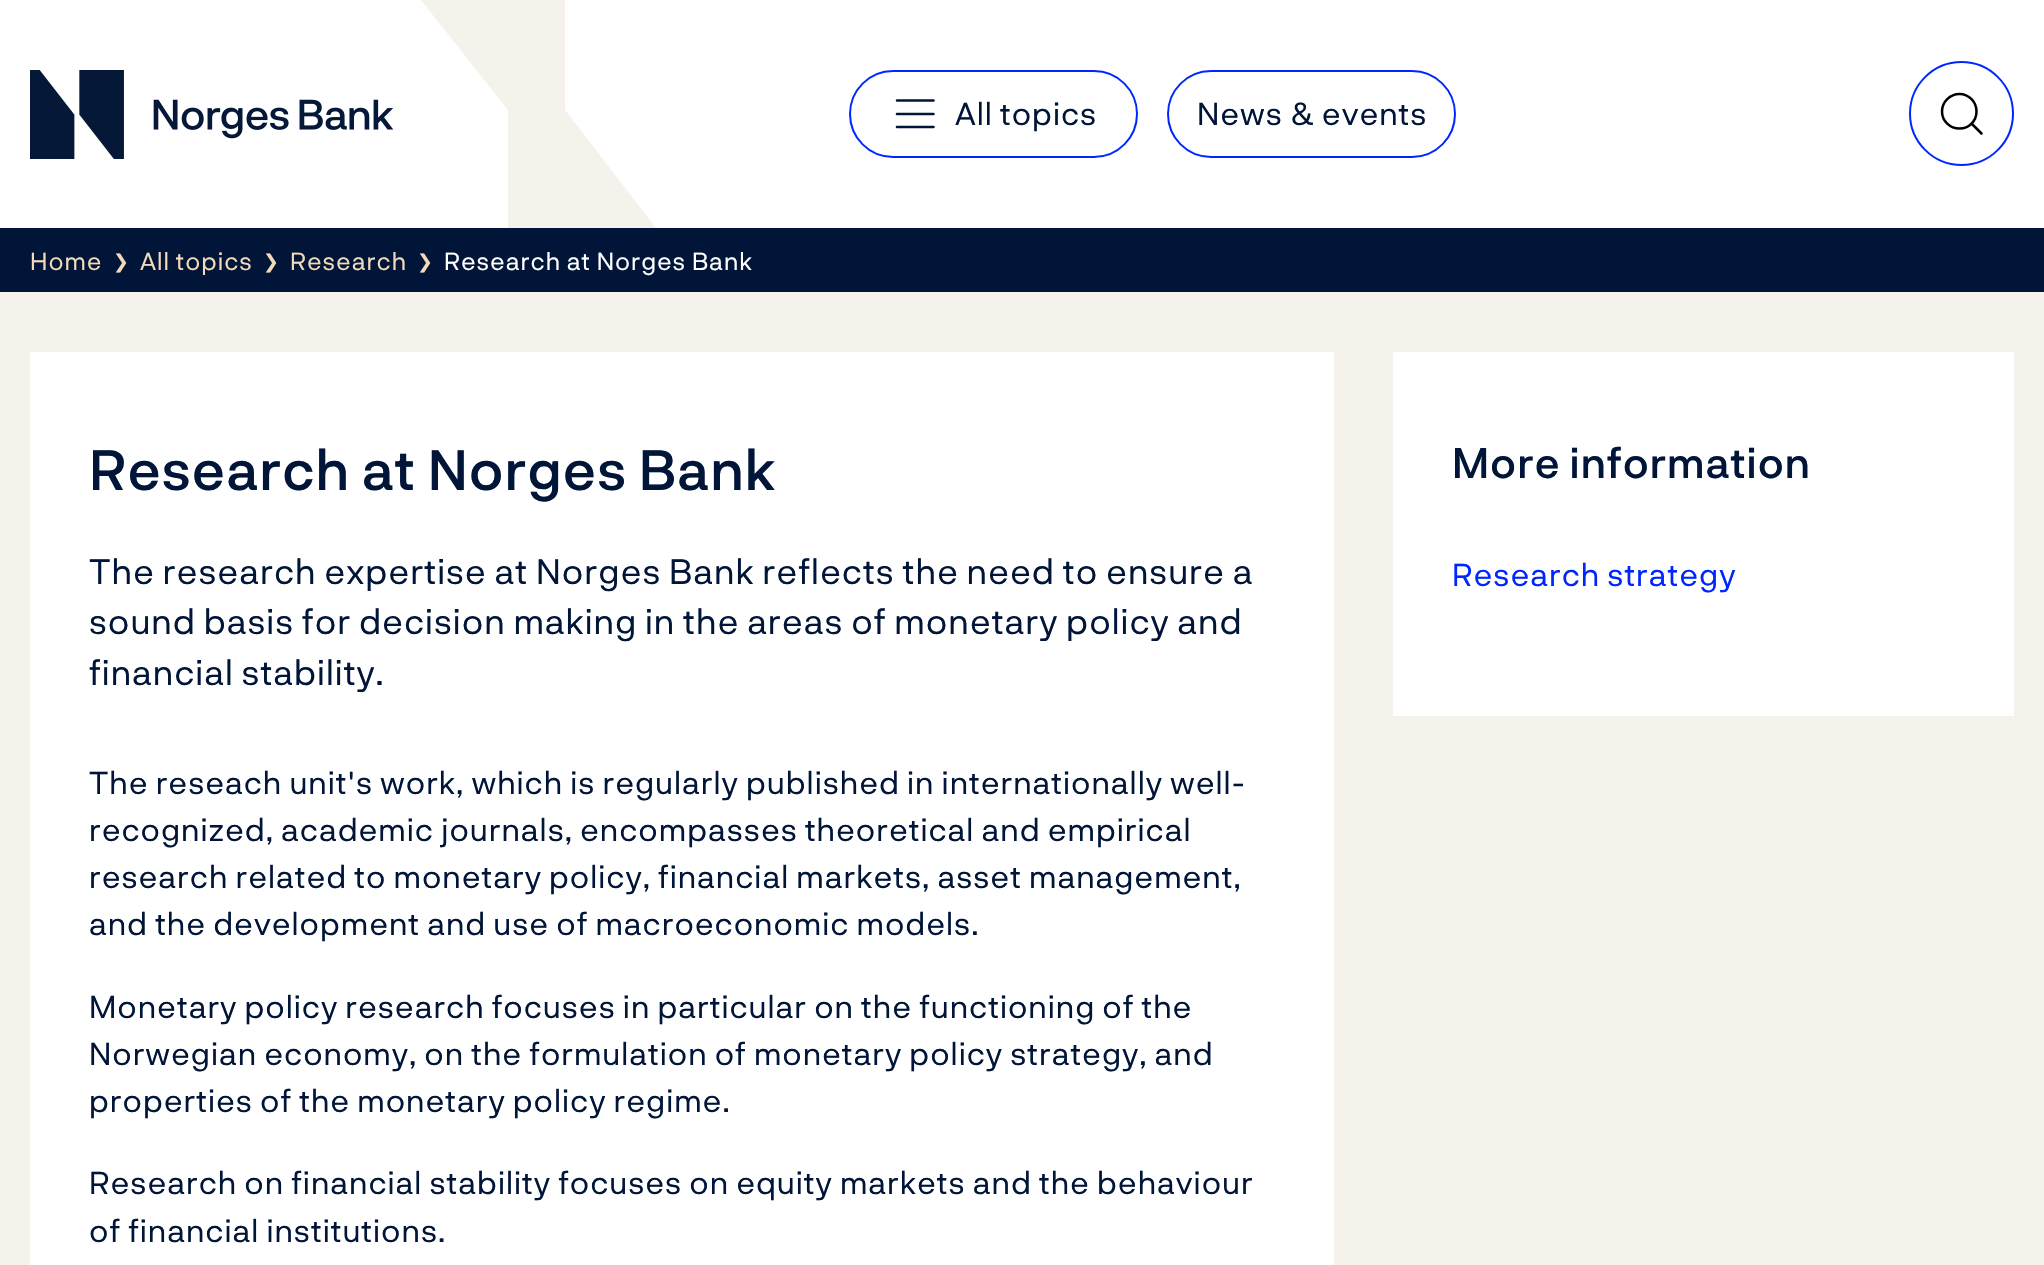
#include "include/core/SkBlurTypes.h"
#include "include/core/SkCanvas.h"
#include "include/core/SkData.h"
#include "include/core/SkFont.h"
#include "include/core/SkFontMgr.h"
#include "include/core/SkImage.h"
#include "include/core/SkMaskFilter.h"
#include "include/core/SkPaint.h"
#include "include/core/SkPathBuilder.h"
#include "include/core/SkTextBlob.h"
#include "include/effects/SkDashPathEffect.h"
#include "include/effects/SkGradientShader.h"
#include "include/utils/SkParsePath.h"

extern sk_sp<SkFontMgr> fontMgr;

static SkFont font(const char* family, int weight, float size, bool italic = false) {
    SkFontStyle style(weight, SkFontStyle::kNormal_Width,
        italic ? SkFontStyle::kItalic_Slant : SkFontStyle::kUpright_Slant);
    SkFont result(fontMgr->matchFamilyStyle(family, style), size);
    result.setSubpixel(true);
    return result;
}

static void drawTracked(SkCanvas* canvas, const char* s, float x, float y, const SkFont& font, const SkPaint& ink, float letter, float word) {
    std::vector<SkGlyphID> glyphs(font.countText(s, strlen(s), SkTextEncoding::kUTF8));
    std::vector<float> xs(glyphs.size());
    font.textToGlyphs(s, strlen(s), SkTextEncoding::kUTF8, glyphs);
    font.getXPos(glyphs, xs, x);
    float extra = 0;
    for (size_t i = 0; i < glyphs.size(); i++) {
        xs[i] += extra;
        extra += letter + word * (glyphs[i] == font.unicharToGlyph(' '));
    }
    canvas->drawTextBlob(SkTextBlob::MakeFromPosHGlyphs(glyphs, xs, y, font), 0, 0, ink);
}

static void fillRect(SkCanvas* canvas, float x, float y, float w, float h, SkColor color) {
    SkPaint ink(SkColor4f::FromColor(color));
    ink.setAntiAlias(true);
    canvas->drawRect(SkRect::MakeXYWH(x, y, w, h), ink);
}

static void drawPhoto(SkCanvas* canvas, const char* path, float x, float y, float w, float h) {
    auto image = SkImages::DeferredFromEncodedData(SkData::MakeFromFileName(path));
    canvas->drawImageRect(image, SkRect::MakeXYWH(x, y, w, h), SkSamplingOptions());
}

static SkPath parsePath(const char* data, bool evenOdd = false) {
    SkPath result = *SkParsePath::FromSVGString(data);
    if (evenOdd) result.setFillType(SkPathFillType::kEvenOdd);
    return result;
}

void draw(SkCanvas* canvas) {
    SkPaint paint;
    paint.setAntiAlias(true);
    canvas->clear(0xFFF5F2EB);
    fillRect(canvas, 0, 0, 2044, 228, 0xFFFFFFFF);
    drawPhoto(canvas, "assets/img1.png", 30, 70, 364, 89);
    paint.setColor(0xFFF5F2EB);
    canvas->drawPath(parsePath("M421 0L508 110V228H656L565 110V0Z"), paint);
    paint.setStroke(true);
    paint.setStrokeWidth(2);
    paint.setColor(0xFF0026FF);
    canvas->drawRoundRect(SkRect::MakeXYWH(850, 71, 287, 86), 43, 43, paint);
    paint.setStrokeWidth(2.6f);
    paint.setStrokeCap(SkPaint::kRound_Cap);
    paint.setStrokeJoin(SkPaint::kRound_Join);
    paint.setColor(0xFF001538);
    canvas->drawPath(parsePath("M897 114H933.5M897 100.5H933.5M897 127H933.5"), paint);
    SkFont font1 = font("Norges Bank", 400, 31.5f);
    paint.setStroke(false);
    drawTracked(canvas, "All topics", 955, 125, font1, paint, 0.98f, 0);
    paint.setStroke(true);
    paint.setStrokeWidth(2);
    paint.setStrokeCap(SkPaint::kButt_Cap);
    paint.setStrokeJoin(SkPaint::kMiter_Join);
    paint.setColor(0xFF0026FF);
    canvas->drawRoundRect(SkRect::MakeXYWH(1168, 71, 287, 86), 43, 43, paint);
    paint.setStroke(false);
    paint.setColor(0xFF001538);
    drawTracked(canvas, "News & events", 1197, 125, font1, paint, 0.98f, 0);
    paint.setStroke(true);
    paint.setColor(0xFF0026FF);
    canvas->drawCircle(1961.5f, 113.5f, 51.5f, paint);
    paint.setStrokeWidth(2.5f);
    paint.setStrokeCap(SkPaint::kRound_Cap);
    paint.setStrokeJoin(SkPaint::kRound_Join);
    paint.setColor(0xFF000000);
    canvas->drawPath(parsePath("M1959.5 128.5C1969 128.5 1976.5 121 1976.5 111.5C1976.5 102 1969 94 1959.5 94C1950 94 1942 102 1942 111.5C1942 121 1950 128.5 1959.5 128.5ZM1971.5 123.5L1981.5 133.5"), paint);
    fillRect(canvas, 0, 228, 2044, 64, 0xFF001538);
    SkFont font2 = font("Norges Bank", 400, 24.5f);
    paint.setStroke(false);
    paint.setColor(0xFFF2DABB);
    drawTracked(canvas, "Home", 30, 270, font2, paint, 0.98f, 0);
    SkFont font3 = font("DejaVu Sans", 400, 19);
    drawTracked(canvas, "❯", 113, 268, font3, paint, 0.98f, 0);
    drawTracked(canvas, "All topics", 140, 270, font2, paint, 0.98f, 0);
    drawTracked(canvas, "❯", 263, 268, font3, paint, 0.98f, 0);
    drawTracked(canvas, "Research", 290, 270, font2, paint, 0.98f, 0);
    drawTracked(canvas, "❯", 417, 268, font3, paint, 0.98f, 0);
    paint.setColor(0xFFFFFFFF);
    drawTracked(canvas, "Research at Norges Bank", 444, 270, font2, paint, 0.98f, 0);
    fillRect(canvas, 30, 352, 1304, 913, 0xFFFFFFFF);
    SkFont font4 = font("Norges Bank", 500, 56);
    paint.setColor(0xFF001538);
    drawTracked(canvas, "Research at Norges Bank", 89, 490, font4, paint, 0.98f, 0);
    SkFont font5 = font("Norges Bank", 400, 35);
    drawTracked(canvas, "The research expertise at Norges Bank reflects the need to ensure a", 89, 584, font5, paint, 0.98f, 0);
    drawTracked(canvas, "sound basis for decision making in the areas of monetary policy and", 89, 634, font5, paint, 0.98f, 0);
    drawTracked(canvas, "financial stability.", 89, 685, font5, paint, 0.98f, 0);
    drawTracked(canvas, "The reseach unit's work, which is regularly published in internationally well-", 89, 794, font1, paint, 0.98f, 0);
    drawTracked(canvas, "recognized, academic journals, encompasses theoretical and empirical", 89, 841, font1, paint, 0.98f, 0);
    drawTracked(canvas, "research related to monetary policy, financial markets, asset management,", 89, 888, font1, paint, 0.98f, 0);
    drawTracked(canvas, "and the development and use of macroeconomic models.", 89, 935, font1, paint, 0.98f, 0);
    drawTracked(canvas, "Monetary policy research focuses in particular on the functioning of the", 89, 1018, font1, paint, 0.98f, 0);
    drawTracked(canvas, "Norwegian economy, on the formulation of monetary policy strategy, and", 89, 1065, font1, paint, 0.98f, 0);
    drawTracked(canvas, "properties of the monetary policy regime.", 89, 1112, font1, paint, 0.98f, 0);
    drawTracked(canvas, "Research on financial stability focuses on equity markets and the behaviour", 89, 1194, font1, paint, 0.98f, 0);
    drawTracked(canvas, "of financial institutions.", 89, 1242, font1, paint, 0.98f, 0);
    fillRect(canvas, 1393, 352, 621, 364, 0xFFFFFFFF);
    SkFont font6 = font("Norges Bank", 500, 42);
    drawTracked(canvas, "More information", 1452, 478, font6, paint, 0.98f, 0);
    paint.setColor(0xFF0026FF);
    drawTracked(canvas, "Research strategy", 1452, 586, font1, paint, 0.98f, 0);
}
